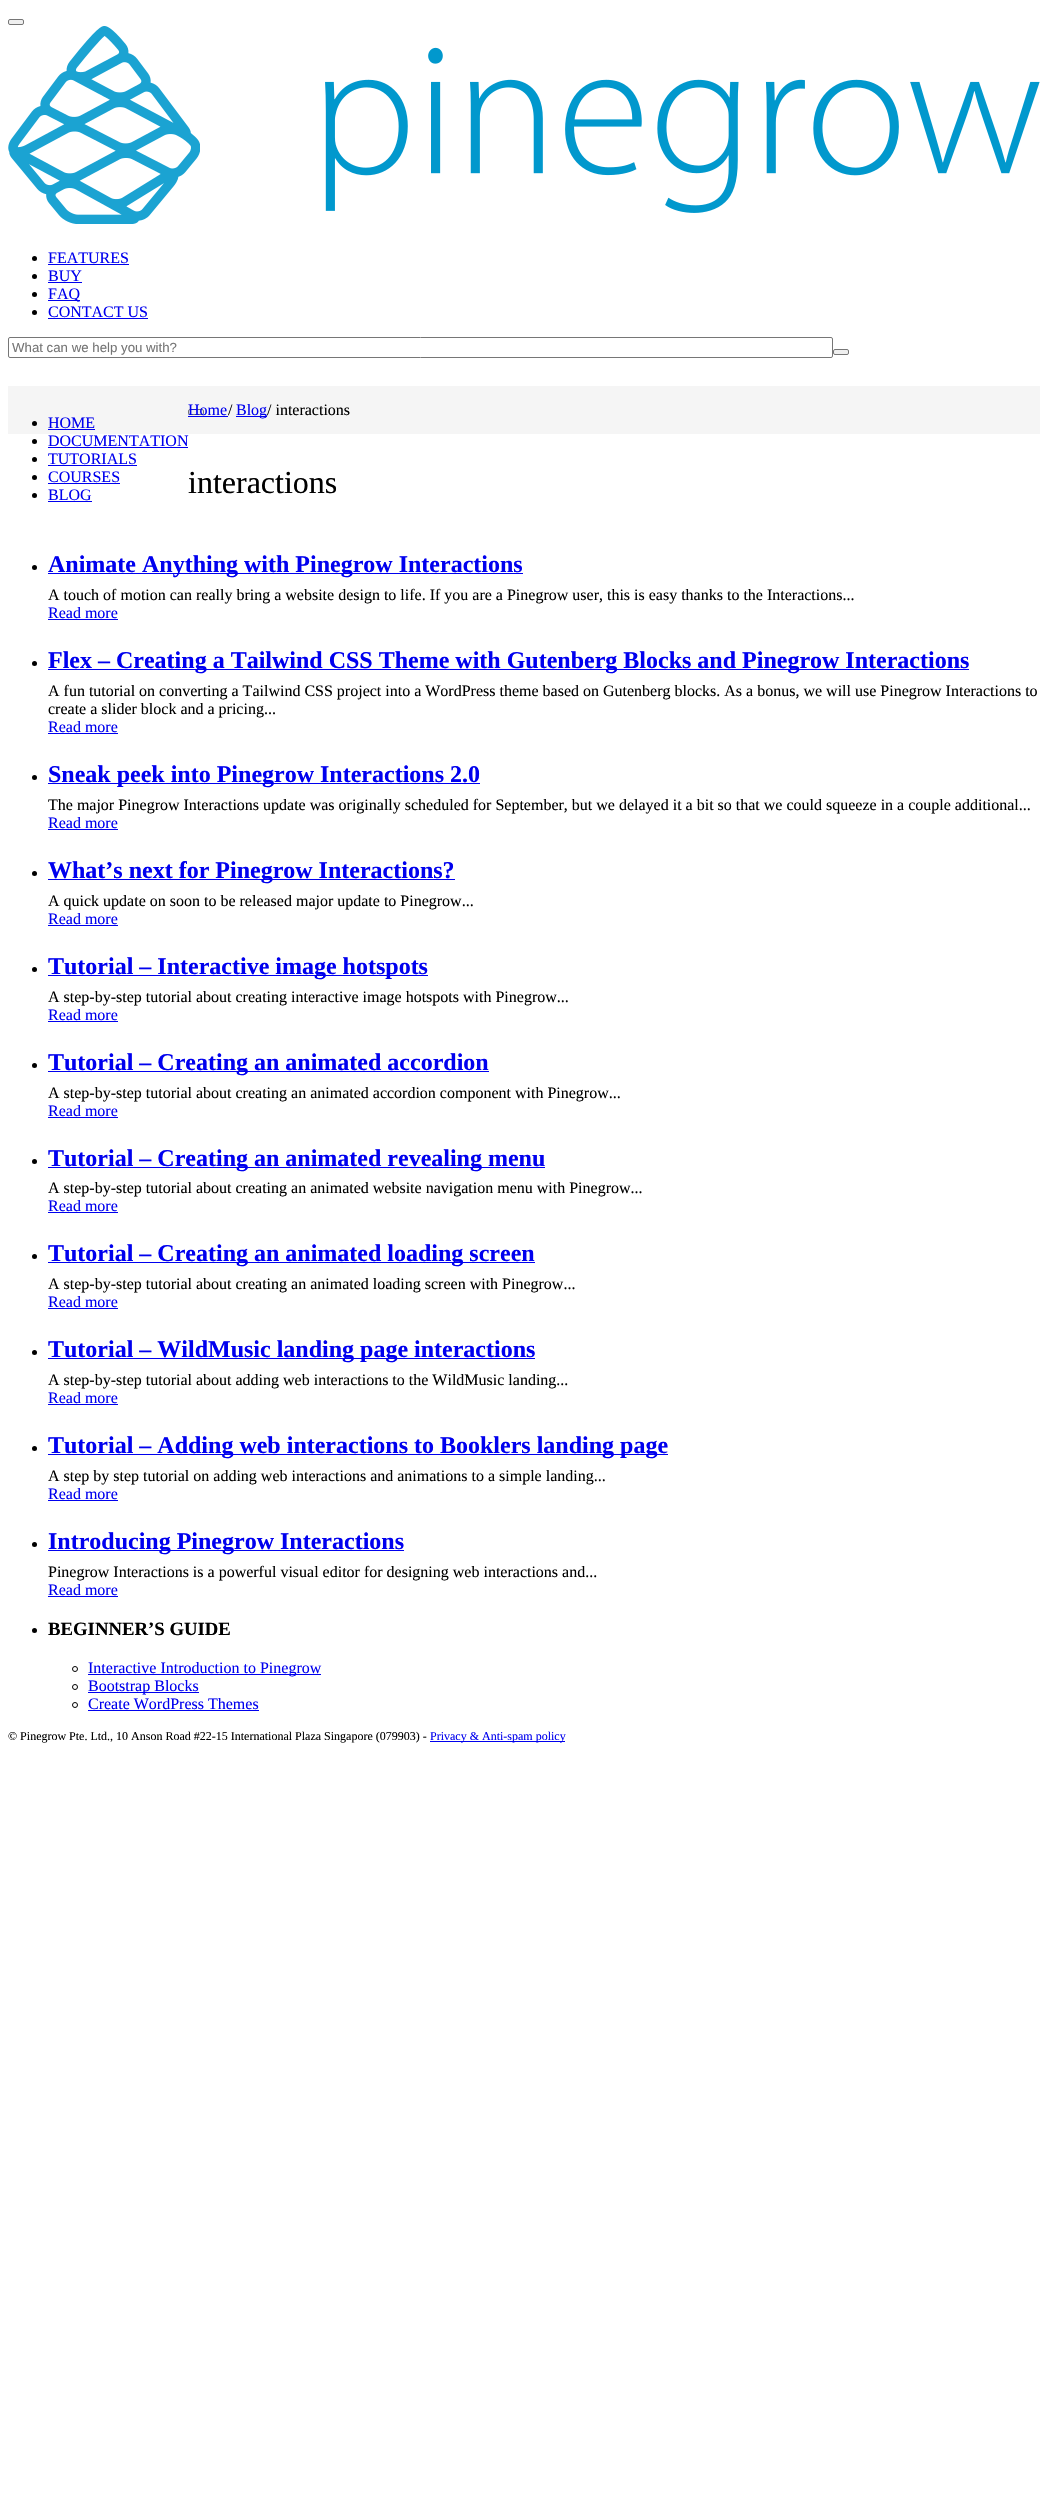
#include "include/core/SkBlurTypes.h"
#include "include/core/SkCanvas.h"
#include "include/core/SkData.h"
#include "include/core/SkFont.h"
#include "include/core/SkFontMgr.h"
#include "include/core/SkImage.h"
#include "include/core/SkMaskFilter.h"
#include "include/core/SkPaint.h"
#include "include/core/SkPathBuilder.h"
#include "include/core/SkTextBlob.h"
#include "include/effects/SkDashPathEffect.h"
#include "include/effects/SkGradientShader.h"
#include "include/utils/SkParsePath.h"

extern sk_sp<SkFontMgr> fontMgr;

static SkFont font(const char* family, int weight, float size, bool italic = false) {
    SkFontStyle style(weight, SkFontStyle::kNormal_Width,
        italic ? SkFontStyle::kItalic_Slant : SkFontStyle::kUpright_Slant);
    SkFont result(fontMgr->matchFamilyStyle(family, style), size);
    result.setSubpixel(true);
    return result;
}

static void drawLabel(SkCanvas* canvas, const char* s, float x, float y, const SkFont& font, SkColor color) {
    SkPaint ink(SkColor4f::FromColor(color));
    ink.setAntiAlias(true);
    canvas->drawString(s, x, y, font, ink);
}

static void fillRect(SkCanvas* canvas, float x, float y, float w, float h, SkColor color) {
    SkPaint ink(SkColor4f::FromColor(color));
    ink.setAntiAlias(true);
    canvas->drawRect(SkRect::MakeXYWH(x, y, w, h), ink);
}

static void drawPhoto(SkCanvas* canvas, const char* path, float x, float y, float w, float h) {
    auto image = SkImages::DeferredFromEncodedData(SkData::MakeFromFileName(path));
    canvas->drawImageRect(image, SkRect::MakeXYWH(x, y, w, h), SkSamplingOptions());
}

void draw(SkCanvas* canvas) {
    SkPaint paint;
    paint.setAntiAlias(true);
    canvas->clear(0xFFFFFFFF);
    paint.setColor(0xFFEFEFEF);
    canvas->drawRoundRect(SkRect::MakeXYWH(8.5f, 19.5f, 15, 5), 1.5f, 1.5f, paint);
    paint.setStroke(true);
    paint.setStrokeWidth(1);
    paint.setColor(0xFF767676);
    canvas->drawRoundRect(SkRect::MakeXYWH(8.5f, 19.5f, 15, 5), 1.5f, 1.5f, paint);
    drawPhoto(canvas, "assets/img1.png", 8, 26, 1032, 198);
    paint.setStroke(false);
    paint.setColor(0xFF000000);
    canvas->drawCircle(34.5f, 258.5f, 2.5f, paint);
    SkFont font1 = font("Liberation Serif", 400, 16);
    drawLabel(canvas, "FEATURES", 48, 263, font1, 0xFF0000EE);
    fillRect(canvas, 48, 264, 81, 1, 0xFF0000EE);
    canvas->drawCircle(34.5f, 276.5f, 2.5f, paint);
    drawLabel(canvas, "BUY", 48, 281, font1, 0xFF0000EE);
    fillRect(canvas, 48, 282, 34, 1, 0xFF0000EE);
    canvas->drawCircle(34.5f, 294.5f, 2.5f, paint);
    fillRect(canvas, 48, 300, 32, 1, 0xFF0000EE);
    drawLabel(canvas, "FAQ", 48, 299, font1, 0xFF0000EE);
    canvas->drawCircle(34.5f, 312.5f, 2.5f, paint);
    drawLabel(canvas, "CONTACT US", 48, 317, font1, 0xFF0000EE);
    fillRect(canvas, 48, 318, 100, 1, 0xFF0000EE);
    paint.setStroke(true);
    paint.setColor(0xFF767676);
    canvas->drawRoundRect(SkRect::MakeXYWH(8.5f, 337.5f, 824, 20), 1.5f, 1.5f, paint);
    SkFont font2 = font("Liberation Sans", 400, 13.25f);
    drawLabel(canvas, "What can we help you with?", 12, 352, font2, 0xFF757575);
    paint.setStroke(false);
    paint.setColor(0xFFEFEFEF);
    canvas->drawRoundRect(SkRect::MakeXYWH(833.5f, 349.5f, 15, 5), 1.5f, 1.5f, paint);
    paint.setStroke(true);
    paint.setColor(0xFF767676);
    canvas->drawRoundRect(SkRect::MakeXYWH(833.5f, 349.5f, 15, 5), 1.5f, 1.5f, paint);
    fillRect(canvas, 8, 386, 1032, 48, 0xFFF5F5F5);
    paint.setStroke(false);
    paint.setColor(0xFFEFEFEF);
    canvas->drawRoundRect(SkRect::MakeXYWH(188.5f, 409.5f, 15, 5), 1.5f, 1.5f, paint);
    paint.setStroke(true);
    paint.setColor(0xFF767676);
    canvas->drawRoundRect(SkRect::MakeXYWH(188.5f, 409.5f, 15, 5), 1.5f, 1.5f, paint);
    paint.setStroke(false);
    paint.setColor(0xFF000000);
    canvas->drawCircle(34.5f, 423.5f, 2.5f, paint);
    drawLabel(canvas, "HOME", 48, 428, font1, 0xFF0000EE);
    fillRect(canvas, 48, 429, 47, 1, 0xFF0000EE);
    canvas->drawCircle(34.5f, 441.5f, 2.5f, paint);
    drawLabel(canvas, "DOCUMENTATION", 48, 446, font1, 0xFF0000EE);
    fillRect(canvas, 48, 447, 140, 1, 0xFF0000EE);
    canvas->drawCircle(34.5f, 459.5f, 2.5f, paint);
    drawLabel(canvas, "TUTORIALS", 48, 464, font1, 0xFF0000EE);
    fillRect(canvas, 48, 465, 89, 1, 0xFF0000EE);
    canvas->drawCircle(34.5f, 477.5f, 2.5f, paint);
    drawLabel(canvas, "COURSES", 48, 482, font1, 0xFF0000EE);
    fillRect(canvas, 48, 483, 72, 1, 0xFF0000EE);
    canvas->drawCircle(34.5f, 495.5f, 2.5f, paint);
    drawLabel(canvas, "BLOG", 48, 500, font1, 0xFF0000EE);
    fillRect(canvas, 48, 501, 44, 1, 0xFF0000EE);
    drawLabel(canvas, "Home", 188, 415, font1, 0xFF0000EE);
    fillRect(canvas, 188, 416, 40, 1, 0xFF0000EE);
    drawLabel(canvas, "/", 228, 415, font1, 0xFF000000);
    fillRect(canvas, 236, 416, 31, 1, 0xFF0000EE);
    drawLabel(canvas, "Blog", 236, 415, font1, 0xFF0000EE);
    drawLabel(canvas, "/ interactions", 267, 415, font1, 0xFF000000);
    SkFont font3 = font("Liberation Serif", 400, 32);
    drawLabel(canvas, "interactions", 188, 493, font3, 0xFF000000);
    canvas->drawCircle(34.5f, 567.5f, 2.5f, paint);
    fillRect(canvas, 48, 573, 475, 1, 0xFF0000EE);
    SkFont font4 = font("Liberation Serif", 700, 24);
    drawLabel(canvas, "Animate Anything with Pinegrow Interactions", 48, 572, font4, 0xFF0000EE);
    drawLabel(canvas, "A touch of motion can really bring a website design to life. If you are a Pinegrow user, this is easy thanks to the Interactions...", 48, 600, font1, 0xFF000000);
    drawLabel(canvas, "Read more", 48, 618, font1, 0xFF0000EE);
    fillRect(canvas, 48, 619, 70, 1, 0xFF0000EE);
    canvas->drawCircle(34.5f, 663.5f, 2.5f, paint);
    fillRect(canvas, 48, 669, 921, 1, 0xFF0000EE);
    drawLabel(canvas, "Flex – Creating a Tailwind CSS Theme with Gutenberg Blocks and Pinegrow Interactions", 48, 668, font4, 0xFF0000EE);
    drawLabel(canvas, "A fun tutorial on converting a Tailwind CSS project into a WordPress theme based on Gutenberg blocks. As a bonus, we will use Pinegrow Interactions to", 48, 696, font1, 0xFF000000);
    drawLabel(canvas, "create a slider block and a pricing...", 48, 714, font1, 0xFF000000);
    drawLabel(canvas, "Read more", 48, 732, font1, 0xFF0000EE);
    fillRect(canvas, 48, 733, 70, 1, 0xFF0000EE);
    canvas->drawCircle(34.5f, 777.5f, 2.5f, paint);
    fillRect(canvas, 48, 783, 432, 1, 0xFF0000EE);
    drawLabel(canvas, "Sneak peek into Pinegrow Interactions 2.0", 48, 782, font4, 0xFF0000EE);
    drawLabel(canvas, "The major Pinegrow Interactions update was originally scheduled for September, but we delayed it a bit so that we could squeeze in a couple additional...", 48, 810, font1, 0xFF000000);
    drawLabel(canvas, "Read more", 48, 828, font1, 0xFF0000EE);
    fillRect(canvas, 48, 829, 70, 1, 0xFF0000EE);
    canvas->drawCircle(34.5f, 873.5f, 2.5f, paint);
    fillRect(canvas, 48, 879, 407, 1, 0xFF0000EE);
    drawLabel(canvas, "What’s next for Pinegrow Interactions?", 48, 878, font4, 0xFF0000EE);
    drawLabel(canvas, "A quick update on soon to be released major update to Pinegrow...", 48, 906, font1, 0xFF000000);
    drawLabel(canvas, "Read more", 48, 924, font1, 0xFF0000EE);
    fillRect(canvas, 48, 925, 70, 1, 0xFF0000EE);
    canvas->drawCircle(34.5f, 969.5f, 2.5f, paint);
    fillRect(canvas, 48, 975, 380, 1, 0xFF0000EE);
    drawLabel(canvas, "Tutorial – Interactive image hotspots", 48, 974, font4, 0xFF0000EE);
    drawLabel(canvas, "A step-by-step tutorial about creating interactive image hotspots with Pinegrow...", 48, 1002, font1, 0xFF000000);
    drawLabel(canvas, "Read more", 48, 1020, font1, 0xFF0000EE);
    fillRect(canvas, 48, 1021, 70, 1, 0xFF0000EE);
    canvas->drawCircle(34.5f, 1065.5f, 2.5f, paint);
    fillRect(canvas, 48, 1071, 441, 1, 0xFF0000EE);
    drawLabel(canvas, "Tutorial – Creating an animated accordion", 48, 1070, font4, 0xFF0000EE);
    drawLabel(canvas, "A step-by-step tutorial about creating an animated accordion component with Pinegrow...", 48, 1098, font1, 0xFF000000);
    drawLabel(canvas, "Read more", 48, 1116, font1, 0xFF0000EE);
    fillRect(canvas, 48, 1117, 70, 1, 0xFF0000EE);
    canvas->drawCircle(34.5f, 1161.5f, 2.5f, paint);
    fillRect(canvas, 48, 1167, 497, 1, 0xFF0000EE);
    drawLabel(canvas, "Tutorial – Creating an animated revealing menu", 48, 1166, font4, 0xFF0000EE);
    drawLabel(canvas, "A step-by-step tutorial about creating an animated website navigation menu with Pinegrow...", 48, 1193, font1, 0xFF000000);
    drawLabel(canvas, "Read more", 48, 1211, font1, 0xFF0000EE);
    fillRect(canvas, 48, 1212, 70, 1, 0xFF0000EE);
    canvas->drawCircle(34.5f, 1256.5f, 2.5f, paint);
    fillRect(canvas, 48, 1262, 487, 1, 0xFF0000EE);
    drawLabel(canvas, "Tutorial – Creating an animated loading screen", 48, 1261, font4, 0xFF0000EE);
    drawLabel(canvas, "A step-by-step tutorial about creating an animated loading screen with Pinegrow...", 48, 1289, font1, 0xFF000000);
    drawLabel(canvas, "Read more", 48, 1307, font1, 0xFF0000EE);
    fillRect(canvas, 48, 1308, 70, 1, 0xFF0000EE);
    canvas->drawCircle(34.5f, 1352.5f, 2.5f, paint);
    fillRect(canvas, 48, 1358, 487, 1, 0xFF0000EE);
    drawLabel(canvas, "Tutorial – WildMusic landing page interactions", 48, 1357, font4, 0xFF0000EE);
    drawLabel(canvas, "A step-by-step tutorial about adding web interactions to the WildMusic landing...", 48, 1385, font1, 0xFF000000);
    drawLabel(canvas, "Read more", 48, 1403, font1, 0xFF0000EE);
    fillRect(canvas, 48, 1404, 70, 1, 0xFF0000EE);
    canvas->drawCircle(34.5f, 1448.5f, 2.5f, paint);
    fillRect(canvas, 48, 1454, 620, 1, 0xFF0000EE);
    drawLabel(canvas, "Tutorial – Adding web interactions to Booklers landing page", 48, 1453, font4, 0xFF0000EE);
    drawLabel(canvas, "A step by step tutorial on adding web interactions and animations to a simple landing...", 48, 1481, font1, 0xFF000000);
    drawLabel(canvas, "Read more", 48, 1499, font1, 0xFF0000EE);
    fillRect(canvas, 48, 1500, 70, 1, 0xFF0000EE);
    canvas->drawCircle(34.5f, 1544.5f, 2.5f, paint);
    fillRect(canvas, 48, 1550, 356, 1, 0xFF0000EE);
    drawLabel(canvas, "Introducing Pinegrow Interactions", 48, 1549, font4, 0xFF0000EE);
    drawLabel(canvas, "Pinegrow Interactions is a powerful visual editor for designing web interactions and...", 48, 1577, font1, 0xFF000000);
    drawLabel(canvas, "Read more", 48, 1595, font1, 0xFF0000EE);
    fillRect(canvas, 48, 1596, 70, 1, 0xFF0000EE);
    canvas->drawCircle(34.5f, 1630.5f, 2.5f, paint);
    SkFont font5 = font("Liberation Serif", 700, 18.75f);
    drawLabel(canvas, "BEGINNER’S GUIDE", 48, 1635, font5, 0xFF000000);
    paint.setStroke(true);
    canvas->drawCircle(75, 1669, 2.5f, paint);
    fillRect(canvas, 88, 1674, 233, 1, 0xFF0000EE);
    drawLabel(canvas, "Interactive Introduction to Pinegrow", 88, 1673, font1, 0xFF0000EE);
    canvas->drawCircle(75, 1687, 2.5f, paint);
    fillRect(canvas, 88, 1692, 111, 1, 0xFF0000EE);
    drawLabel(canvas, "Bootstrap Blocks", 88, 1691, font1, 0xFF0000EE);
    canvas->drawCircle(75, 1705, 2.5f, paint);
    drawLabel(canvas, "Create WordPress Themes", 88, 1709, font1, 0xFF0000EE);
    fillRect(canvas, 88, 1710, 171, 1, 0xFF0000EE);
    SkFont font6 = font("Liberation Serif", 400, 12);
    drawLabel(canvas, "© Pinegrow Pte. Ltd., 10 Anson Road #22-15 International Plaza Singapore (079903) -", 8, 1740, font6, 0xFF000000);
    fillRect(canvas, 430, 1741, 135, 1, 0xFF0000EE);
    drawLabel(canvas, "Privacy & Anti-spam policy", 430, 1740, font6, 0xFF0000EE);
}
